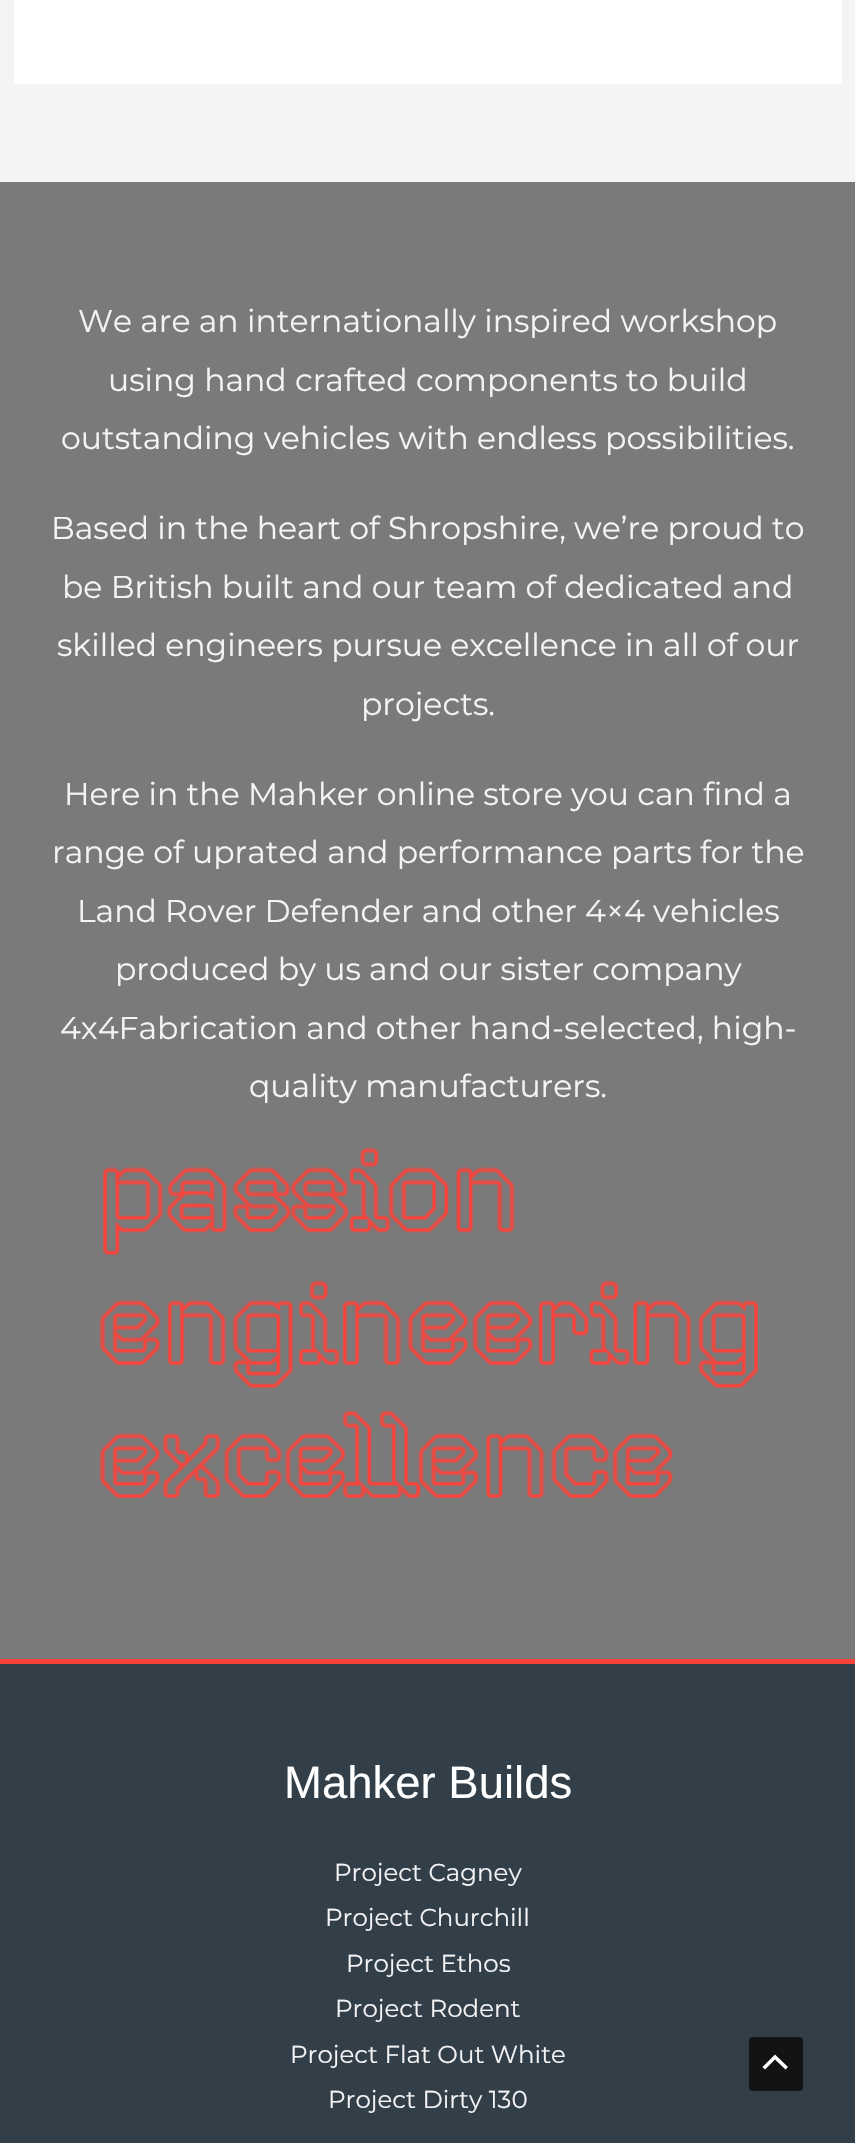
#include "include/core/SkBlurTypes.h"
#include "include/core/SkCanvas.h"
#include "include/core/SkData.h"
#include "include/core/SkFont.h"
#include "include/core/SkFontMgr.h"
#include "include/core/SkImage.h"
#include "include/core/SkMaskFilter.h"
#include "include/core/SkPaint.h"
#include "include/core/SkPathBuilder.h"
#include "include/core/SkTextBlob.h"
#include "include/effects/SkDashPathEffect.h"
#include "include/effects/SkGradientShader.h"
#include "include/utils/SkParsePath.h"

extern sk_sp<SkFontMgr> fontMgr;

static SkFont font(const char* family, int weight, float size, bool italic = false) {
    SkFontStyle style(weight, SkFontStyle::kNormal_Width,
        italic ? SkFontStyle::kItalic_Slant : SkFontStyle::kUpright_Slant);
    SkFont result(fontMgr->matchFamilyStyle(family, style), size);
    result.setSubpixel(true);
    return result;
}

static void drawLabel(SkCanvas* canvas, const char* s, float x, float y, const SkFont& font, SkColor color) {
    SkPaint ink(SkColor4f::FromColor(color));
    ink.setAntiAlias(true);
    canvas->drawString(s, x, y, font, ink);
}

static void fillRect(SkCanvas* canvas, float x, float y, float w, float h, SkColor color) {
    SkPaint ink(SkColor4f::FromColor(color));
    ink.setAntiAlias(true);
    canvas->drawRect(SkRect::MakeXYWH(x, y, w, h), ink);
}

static void fillRRect(SkCanvas* canvas, float x, float y, float w, float h, float radius, SkColor color) {
    SkPaint ink(SkColor4f::FromColor(color));
    ink.setAntiAlias(true);
    canvas->drawRoundRect(SkRect::MakeXYWH(x, y, w, h), radius, radius, ink);
}

static void drawPhoto(SkCanvas* canvas, const char* path, float x, float y, float w, float h) {
    auto image = SkImages::DeferredFromEncodedData(SkData::MakeFromFileName(path));
    canvas->drawImageRect(image, SkRect::MakeXYWH(x, y, w, h), SkSamplingOptions());
}

static SkPath parsePath(const char* data, bool evenOdd = false) {
    SkPath result = *SkParsePath::FromSVGString(data);
    if (evenOdd) result.setFillType(SkPathFillType::kEvenOdd);
    return result;
}

void draw(SkCanvas* canvas) {
    SkPaint paint;
    paint.setAntiAlias(true);
    canvas->clear(0xFFF4F4F6);
    fillRect(canvas, 14, 0, 828, 84, 0xFFFFFFFF);
    fillRect(canvas, 0, 182, 855, 1477, 0xFF7A7A7A);
    fillRect(canvas, 0, 1659, 855, 5, 0xFFF9423A);
    SkFont font1 = font("Montserrat", 400, 31.5f);
    drawLabel(canvas, "We are an internationally inspired workshop", 78, 332, font1, 0xFFF4F4F6);
    drawLabel(canvas, "using hand crafted components to build", 108, 391, font1, 0xFFF4F4F6);
    drawLabel(canvas, "outstanding vehicles with endless possibilities.", 61, 449, font1, 0xFFF4F4F6);
    drawLabel(canvas, "Based in the heart of Shropshire, we’re proud to", 51, 539, font1, 0xFFF4F4F6);
    drawLabel(canvas, "be British built and our team of dedicated and", 62, 598, font1, 0xFFF4F4F6);
    drawLabel(canvas, "skilled engineers pursue excellence in all of our", 57, 656, font1, 0xFFF4F4F6);
    drawLabel(canvas, "projects.", 361, 715, font1, 0xFFF4F4F6);
    drawLabel(canvas, "Here in the Mahker online store you can find a", 64, 805, font1, 0xFFF4F4F6);
    drawLabel(canvas, "range of uprated and performance parts for the", 52, 863, font1, 0xFFF4F4F6);
    drawLabel(canvas, "Land Rover Defender and other 4×4 vehicles", 77, 922, font1, 0xFFF4F4F6);
    drawLabel(canvas, "produced by us and our sister company", 115, 980, font1, 0xFFF4F4F6);
    drawLabel(canvas, "4x4Fabrication and other hand-selected, high-", 60, 1039, font1, 0xFFF4F4F6);
    drawLabel(canvas, "quality manufacturers.", 249, 1097, font1, 0xFFF4F4F6);
    drawPhoto(canvas, "assets/img1.png", 99, 1147, 659, 351);
    fillRect(canvas, 0, 1664, 855, 479, 0xFF333F48);
    SkFont font2 = font("Liberation Sans", 400, 45.5f);
    drawLabel(canvas, "Mahker Builds", 284, 1798, font2, 0xFFFFFFFF);
    SkFont font3 = font("Montserrat", 400, 24.5f);
    drawLabel(canvas, "Project Cagney", 334, 1881, font3, 0xFFF4F4F6);
    drawLabel(canvas, "Project Churchill", 325, 1926, font3, 0xFFF4F4F6);
    drawLabel(canvas, "Project Ethos", 346, 1972, font3, 0xFFF4F4F6);
    drawLabel(canvas, "Project Rodent", 335, 2017, font3, 0xFFF4F4F6);
    drawLabel(canvas, "Project Flat Out White", 290, 2063, font3, 0xFFF4F4F6);
    drawLabel(canvas, "Project Dirty 130", 328, 2108, font3, 0xFFF4F4F6);
    fillRRect(canvas, 749, 2037, 54, 54, 4, 0xFF131316);
    paint.setColor(0xFFFFFFFF);
    canvas->drawPath(parsePath("M788 2067L775 2054.5L762.5 2067L765 2069.5L775 2059.5L785.5 2069.5Z"), paint);
}
